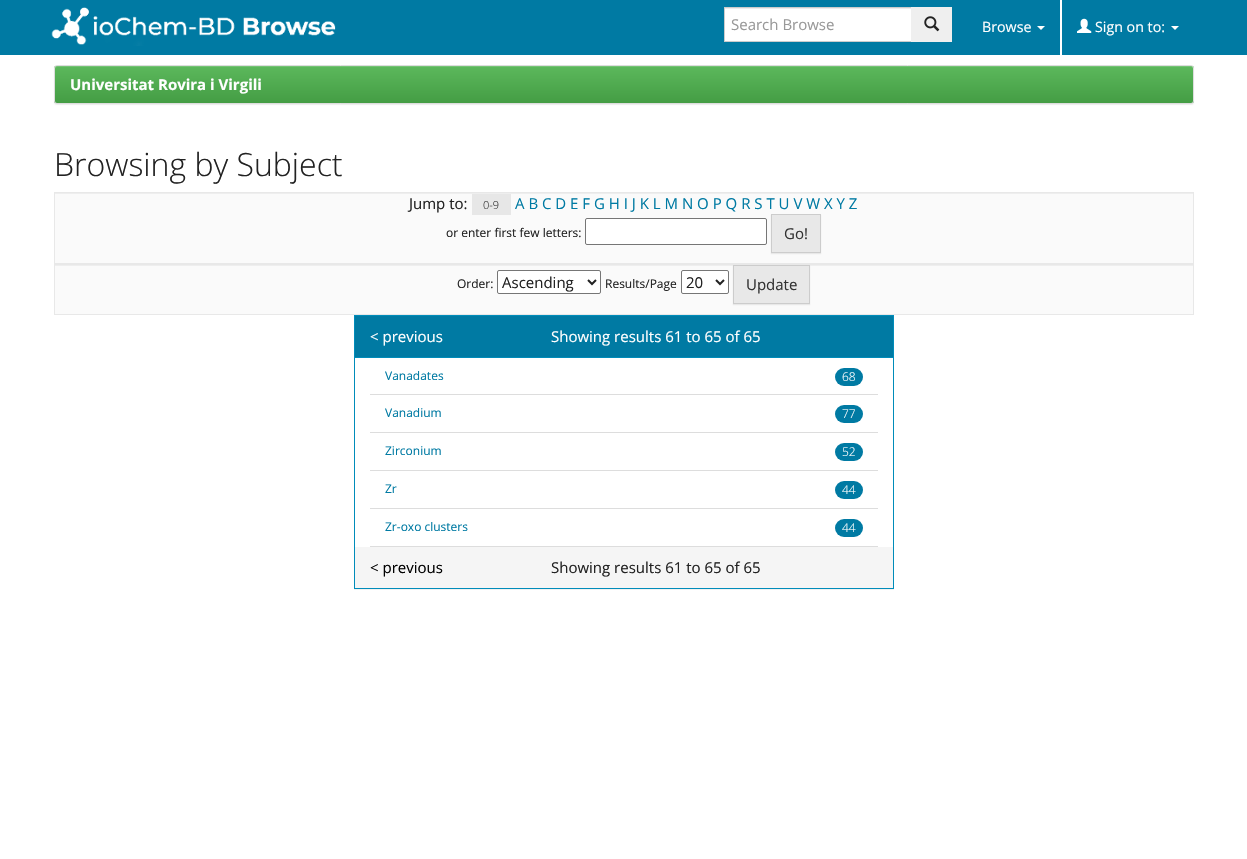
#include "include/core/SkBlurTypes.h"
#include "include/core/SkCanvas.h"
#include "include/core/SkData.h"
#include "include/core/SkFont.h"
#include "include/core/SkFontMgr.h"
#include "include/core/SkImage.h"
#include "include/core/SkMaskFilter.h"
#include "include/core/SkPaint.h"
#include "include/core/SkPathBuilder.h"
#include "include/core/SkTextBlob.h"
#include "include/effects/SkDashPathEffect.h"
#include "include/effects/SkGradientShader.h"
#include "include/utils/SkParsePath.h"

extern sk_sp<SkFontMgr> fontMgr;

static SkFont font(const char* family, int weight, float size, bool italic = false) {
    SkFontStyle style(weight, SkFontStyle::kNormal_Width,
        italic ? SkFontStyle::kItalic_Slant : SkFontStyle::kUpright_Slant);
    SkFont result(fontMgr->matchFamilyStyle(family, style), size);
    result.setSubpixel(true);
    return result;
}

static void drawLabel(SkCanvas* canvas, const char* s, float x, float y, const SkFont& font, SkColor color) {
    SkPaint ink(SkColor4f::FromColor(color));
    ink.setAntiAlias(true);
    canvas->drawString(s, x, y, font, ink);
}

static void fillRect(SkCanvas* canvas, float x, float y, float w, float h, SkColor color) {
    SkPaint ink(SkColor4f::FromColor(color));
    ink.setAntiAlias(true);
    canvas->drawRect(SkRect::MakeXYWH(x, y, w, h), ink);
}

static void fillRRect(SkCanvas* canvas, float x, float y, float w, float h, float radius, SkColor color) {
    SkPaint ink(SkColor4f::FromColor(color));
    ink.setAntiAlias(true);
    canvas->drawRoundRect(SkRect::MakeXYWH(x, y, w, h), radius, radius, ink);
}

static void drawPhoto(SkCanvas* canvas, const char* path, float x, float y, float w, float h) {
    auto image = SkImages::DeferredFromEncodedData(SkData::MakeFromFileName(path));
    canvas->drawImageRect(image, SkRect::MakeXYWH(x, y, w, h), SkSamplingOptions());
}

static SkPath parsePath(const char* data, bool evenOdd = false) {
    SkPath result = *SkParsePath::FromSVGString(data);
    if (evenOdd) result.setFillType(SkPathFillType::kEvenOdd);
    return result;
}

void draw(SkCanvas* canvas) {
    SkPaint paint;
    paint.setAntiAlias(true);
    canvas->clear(0xFFFFFFFF);
    fillRect(canvas, 0, 0, 1247, 55, 0xFF007AA3);
    drawPhoto(canvas, "assets/img1.png", 51, 7, 285, 39);
    fillRect(canvas, 725, 9, 186, 32, 0xFFFFFFFF);
    fillRect(canvas, 725, 8, 186, 1, 0xFFECECEC);
    paint.setStroke(true);
    paint.setStrokeWidth(1);
    paint.setColor(0xFFCCCCCC);
    canvas->drawRect(SkRect::MakeXYWH(724.5f, 7.5f, 187, 34), paint);
    SkFont font1 = font("Open Sans", 400, 15);
    drawLabel(canvas, "Search Browse", 731, 30, font1, 0xFF999999);
    fillRect(canvas, 911, 7, 41, 35, 0xFFEFEFEF);
    drawPhoto(canvas, "assets/img2.png", 924, 16, 16, 16);
    SkFont font2 = font("Open Sans", 400, 14.25f);
    drawLabel(canvas, "Browse", 982, 32, font2, 0xFFFFFFFF);
    paint.setStroke(false);
    paint.setColor(0xFFFFFFFF);
    canvas->drawPath(parsePath("M1037 26H1045L1041 30Z"), paint);
    fillRect(canvas, 1060, 0, 2, 55, 0xFFFFFFFF);
    drawPhoto(canvas, "assets/img3.png", 1077, 18, 15, 15);
    drawLabel(canvas, "Sign on to:", 1095, 32, font2, 0xFFFFFFFF);
    canvas->drawPath(parsePath("M1171 26H1179L1175 30Z"), paint);
    paint.setColor(0x12000000);
    paint.setMaskFilter(SkMaskFilter::MakeBlur(kNormal_SkBlurStyle, 0.5f));
    canvas->drawRoundRect(SkRect::MakeXYWH(54, 66, 1140, 39), 3, 3, paint);
    paint.setMaskFilter(nullptr);
    canvas->save();
    canvas->clipPath(parsePath("M57 65H1191C1192.5 65 1194 66.5 1194 68V101C1194 102.5 1192.5 104 1191 104H57C55.5 104 54 102.5 54 101V68C54 66.5 55.5 65 57 65Z"), true);
    {
        const SkColor colors[] = {0xFF5CB85C, 0xFF449D44};
        const float stops[] = {0, 1};
        const SkPoint ends[] = {{624, 66}, {624, 103}};
        paint.setShader(SkGradientShader::MakeLinear(ends, colors, stops, 2, SkTileMode::kClamp));
        paint.setAlpha(255);
    }
    canvas->drawRect(SkRect::MakeXYWH(54, 66, 1140, 37), paint);
    canvas->restore();
    paint.setShader(nullptr);
    paint.setColor(0xFF74C374);
    canvas->drawPath(parsePath("M57 67H1191C1192 67 1193 68 1193 69V67L1191 66H57C56 66 55 67 55 68V69C55 68 56 67 57 67Z"), paint);
    paint.setStroke(true);
    paint.setColor(0xFFDDDDDD);
    canvas->drawRoundRect(SkRect::MakeXYWH(54.5f, 65.5f, 1139, 38), 2.5f, 2.5f, paint);
    SkFont font3 = font("Open Sans", 700, 15);
    drawLabel(canvas, "Universitat Rovira i Virgili", 70, 90, font3, 0xFFFFFFFF);
    SkFont font4 = font("Open Sans", 300, 32);
    drawLabel(canvas, "Browsing by Subject", 54, 176, font4, 0xFF222222);
    fillRect(canvas, 55, 194, 1138, 69, 0xFFFAFAFA);
    fillRect(canvas, 55, 193, 1138, 1, 0xFFEEEEEE);
    paint.setColor(0xFFE8E8E8);
    canvas->drawRect(SkRect::MakeXYWH(54.5f, 192.5f, 1139, 71), paint);
    drawLabel(canvas, "Jump to:", 409, 209, font1, 0xFF222222);
    fillRect(canvas, 472, 194, 39, 21, 0xFFE7E7E7);
    SkFont font5 = font("Open Sans", 300, 11);
    drawLabel(canvas, "0-9", 483, 209, font5, 0xFF333333);
    drawLabel(canvas, "A B C D E F G H I J K L M N O P Q R S T U V W X Y Z", 515, 209, font1, 0xFF007AA3);
    SkFont font6 = font("Open Sans", 400, 12);
    drawLabel(canvas, "or enter first few letters:", 446, 237, font6, 0xFF222222);
    paint.setStroke(false);
    paint.setColor(0xFFFFFFFF);
    canvas->drawRoundRect(SkRect::MakeXYWH(585.5f, 218.5f, 181, 26), 1.5f, 1.5f, paint);
    paint.setStroke(true);
    paint.setColor(0xFF767676);
    canvas->drawRoundRect(SkRect::MakeXYWH(585.5f, 218.5f, 181, 26), 1.5f, 1.5f, paint);
    paint.setStroke(false);
    paint.setColor(0x12000000);
    paint.setMaskFilter(SkMaskFilter::MakeBlur(kNormal_SkBlurStyle, 0.5f));
    canvas->drawRect(SkRect::MakeXYWH(771, 215, 50, 39), paint);
    paint.setMaskFilter(nullptr);
    paint.setStroke(true);
    paint.setColor(0xFFCCCCCC);
    canvas->drawRect(SkRect::MakeXYWH(771.5f, 214.5f, 49, 38), paint);
    drawLabel(canvas, "Go!", 784, 239, font1, 0xFF333333);
    fillRect(canvas, 55, 266, 1138, 48, 0xFFFAFAFA);
    fillRect(canvas, 55, 265, 1138, 1, 0xFFEEEEEE);
    paint.setColor(0xFFE8E8E8);
    canvas->drawRect(SkRect::MakeXYWH(54.5f, 264.5f, 1139, 50), paint);
    drawLabel(canvas, "Order:", 457, 288, font6, 0xFF222222);
    paint.setStroke(false);
    paint.setColor(0xFFFFFFFF);
    canvas->drawRoundRect(SkRect::MakeXYWH(497.5f, 270.5f, 103, 23), 1.5f, 1.5f, paint);
    paint.setStroke(true);
    paint.setColor(0xFF767676);
    canvas->drawRoundRect(SkRect::MakeXYWH(497.5f, 270.5f, 103, 23), 1.5f, 1.5f, paint);
    paint.setStrokeWidth(2);
    paint.setColor(0xFF222222);
    canvas->drawPath(parsePath("M588 280L592 284L596 280"), paint);
    drawLabel(canvas, "Ascending", 502, 288, font1, 0xFF222222);
    drawLabel(canvas, "Results/Page", 605, 288, font6, 0xFF222222);
    paint.setStroke(false);
    paint.setColor(0xFFFFFFFF);
    canvas->drawRoundRect(SkRect::MakeXYWH(681.5f, 270.5f, 47, 23), 1.5f, 1.5f, paint);
    paint.setStroke(true);
    paint.setStrokeWidth(1);
    paint.setColor(0xFF767676);
    canvas->drawRoundRect(SkRect::MakeXYWH(681.5f, 270.5f, 47, 23), 1.5f, 1.5f, paint);
    paint.setStrokeWidth(2);
    paint.setColor(0xFF222222);
    canvas->drawPath(parsePath("M716 280L720 284L724 280"), paint);
    drawLabel(canvas, "20", 686, 288, font1, 0xFF222222);
    paint.setStroke(false);
    paint.setColor(0x12000000);
    paint.setMaskFilter(SkMaskFilter::MakeBlur(kNormal_SkBlurStyle, 0.5f));
    canvas->drawRect(SkRect::MakeXYWH(733, 266, 77, 39), paint);
    paint.setMaskFilter(nullptr);
    paint.setStroke(true);
    paint.setStrokeWidth(1);
    paint.setColor(0xFFCCCCCC);
    canvas->drawRect(SkRect::MakeXYWH(733.5f, 265.5f, 76, 38), paint);
    drawLabel(canvas, "Update", 746, 290, font1, 0xFF333333);
    canvas->save();
    canvas->clipRect(SkRect::MakeXYWH(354, 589, 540, 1));
    paint.setStroke(false);
    paint.setColor(0x0D000000);
    paint.setMaskFilter(SkMaskFilter::MakeBlur(kNormal_SkBlurStyle, 0.5f));
    canvas->drawRect(SkRect::MakeXYWH(354, 316, 540, 274), paint);
    paint.setMaskFilter(nullptr);
    canvas->restore();
    paint.setStroke(true);
    paint.setColor(0xFF008CBA);
    canvas->drawRect(SkRect::MakeXYWH(354.5f, 315.5f, 539, 273), paint);
    fillRect(canvas, 355, 316, 538, 41, 0xFF007AA3);
    fillRect(canvas, 355, 357, 538, 1, 0xFF008CBA);
    drawLabel(canvas, "< previous", 370, 342, font1, 0xFFFFFFFF);
    drawLabel(canvas, "Showing results 61 to 65 of 65", 551, 342, font1, 0xFFFFFFFF);
    fillRect(canvas, 370, 394, 508, 1, 0xFFDDDDDD);
    drawLabel(canvas, "Vanadates", 385, 380, font6, 0xFF007AA3);
    fillRRect(canvas, 835, 368, 28, 18, 9, 0xFF007AA3);
    SkFont font7 = font("Open Sans", 300, 12);
    drawLabel(canvas, "68", 842, 381, font7, 0xFFFFFFFF);
    fillRect(canvas, 370, 432, 508, 1, 0xFFDDDDDD);
    drawLabel(canvas, "Vanadium", 385, 417, font6, 0xFF007AA3);
    fillRRect(canvas, 835, 405, 28, 18, 9, 0xFF007AA3);
    drawLabel(canvas, "77", 842, 418, font7, 0xFFFFFFFF);
    fillRect(canvas, 370, 470, 508, 1, 0xFFDDDDDD);
    drawLabel(canvas, "Zirconium", 385, 455, font6, 0xFF007AA3);
    fillRRect(canvas, 835, 443, 28, 18, 9, 0xFF007AA3);
    drawLabel(canvas, "52", 842, 456, font7, 0xFFFFFFFF);
    fillRect(canvas, 370, 508, 508, 1, 0xFFDDDDDD);
    drawLabel(canvas, "Zr", 385, 493, font6, 0xFF007AA3);
    fillRRect(canvas, 835, 481, 28, 18, 9, 0xFF007AA3);
    drawLabel(canvas, "44", 842, 494, font7, 0xFFFFFFFF);
    fillRect(canvas, 370, 546, 508, 1, 0xFFDDDDDD);
    drawLabel(canvas, "Zr-oxo clusters", 385, 531, font6, 0xFF007AA3);
    fillRRect(canvas, 835, 519, 28, 18, 9, 0xFF007AA3);
    drawLabel(canvas, "44", 842, 532, font7, 0xFFFFFFFF);
    fillRect(canvas, 355, 547, 538, 41, 0xFFF5F5F5);
    drawLabel(canvas, "< previous", 370, 573, font1, 0xFF000000);
    drawLabel(canvas, "Showing results 61 to 65 of 65", 551, 573, font1, 0xFF222222);
}
